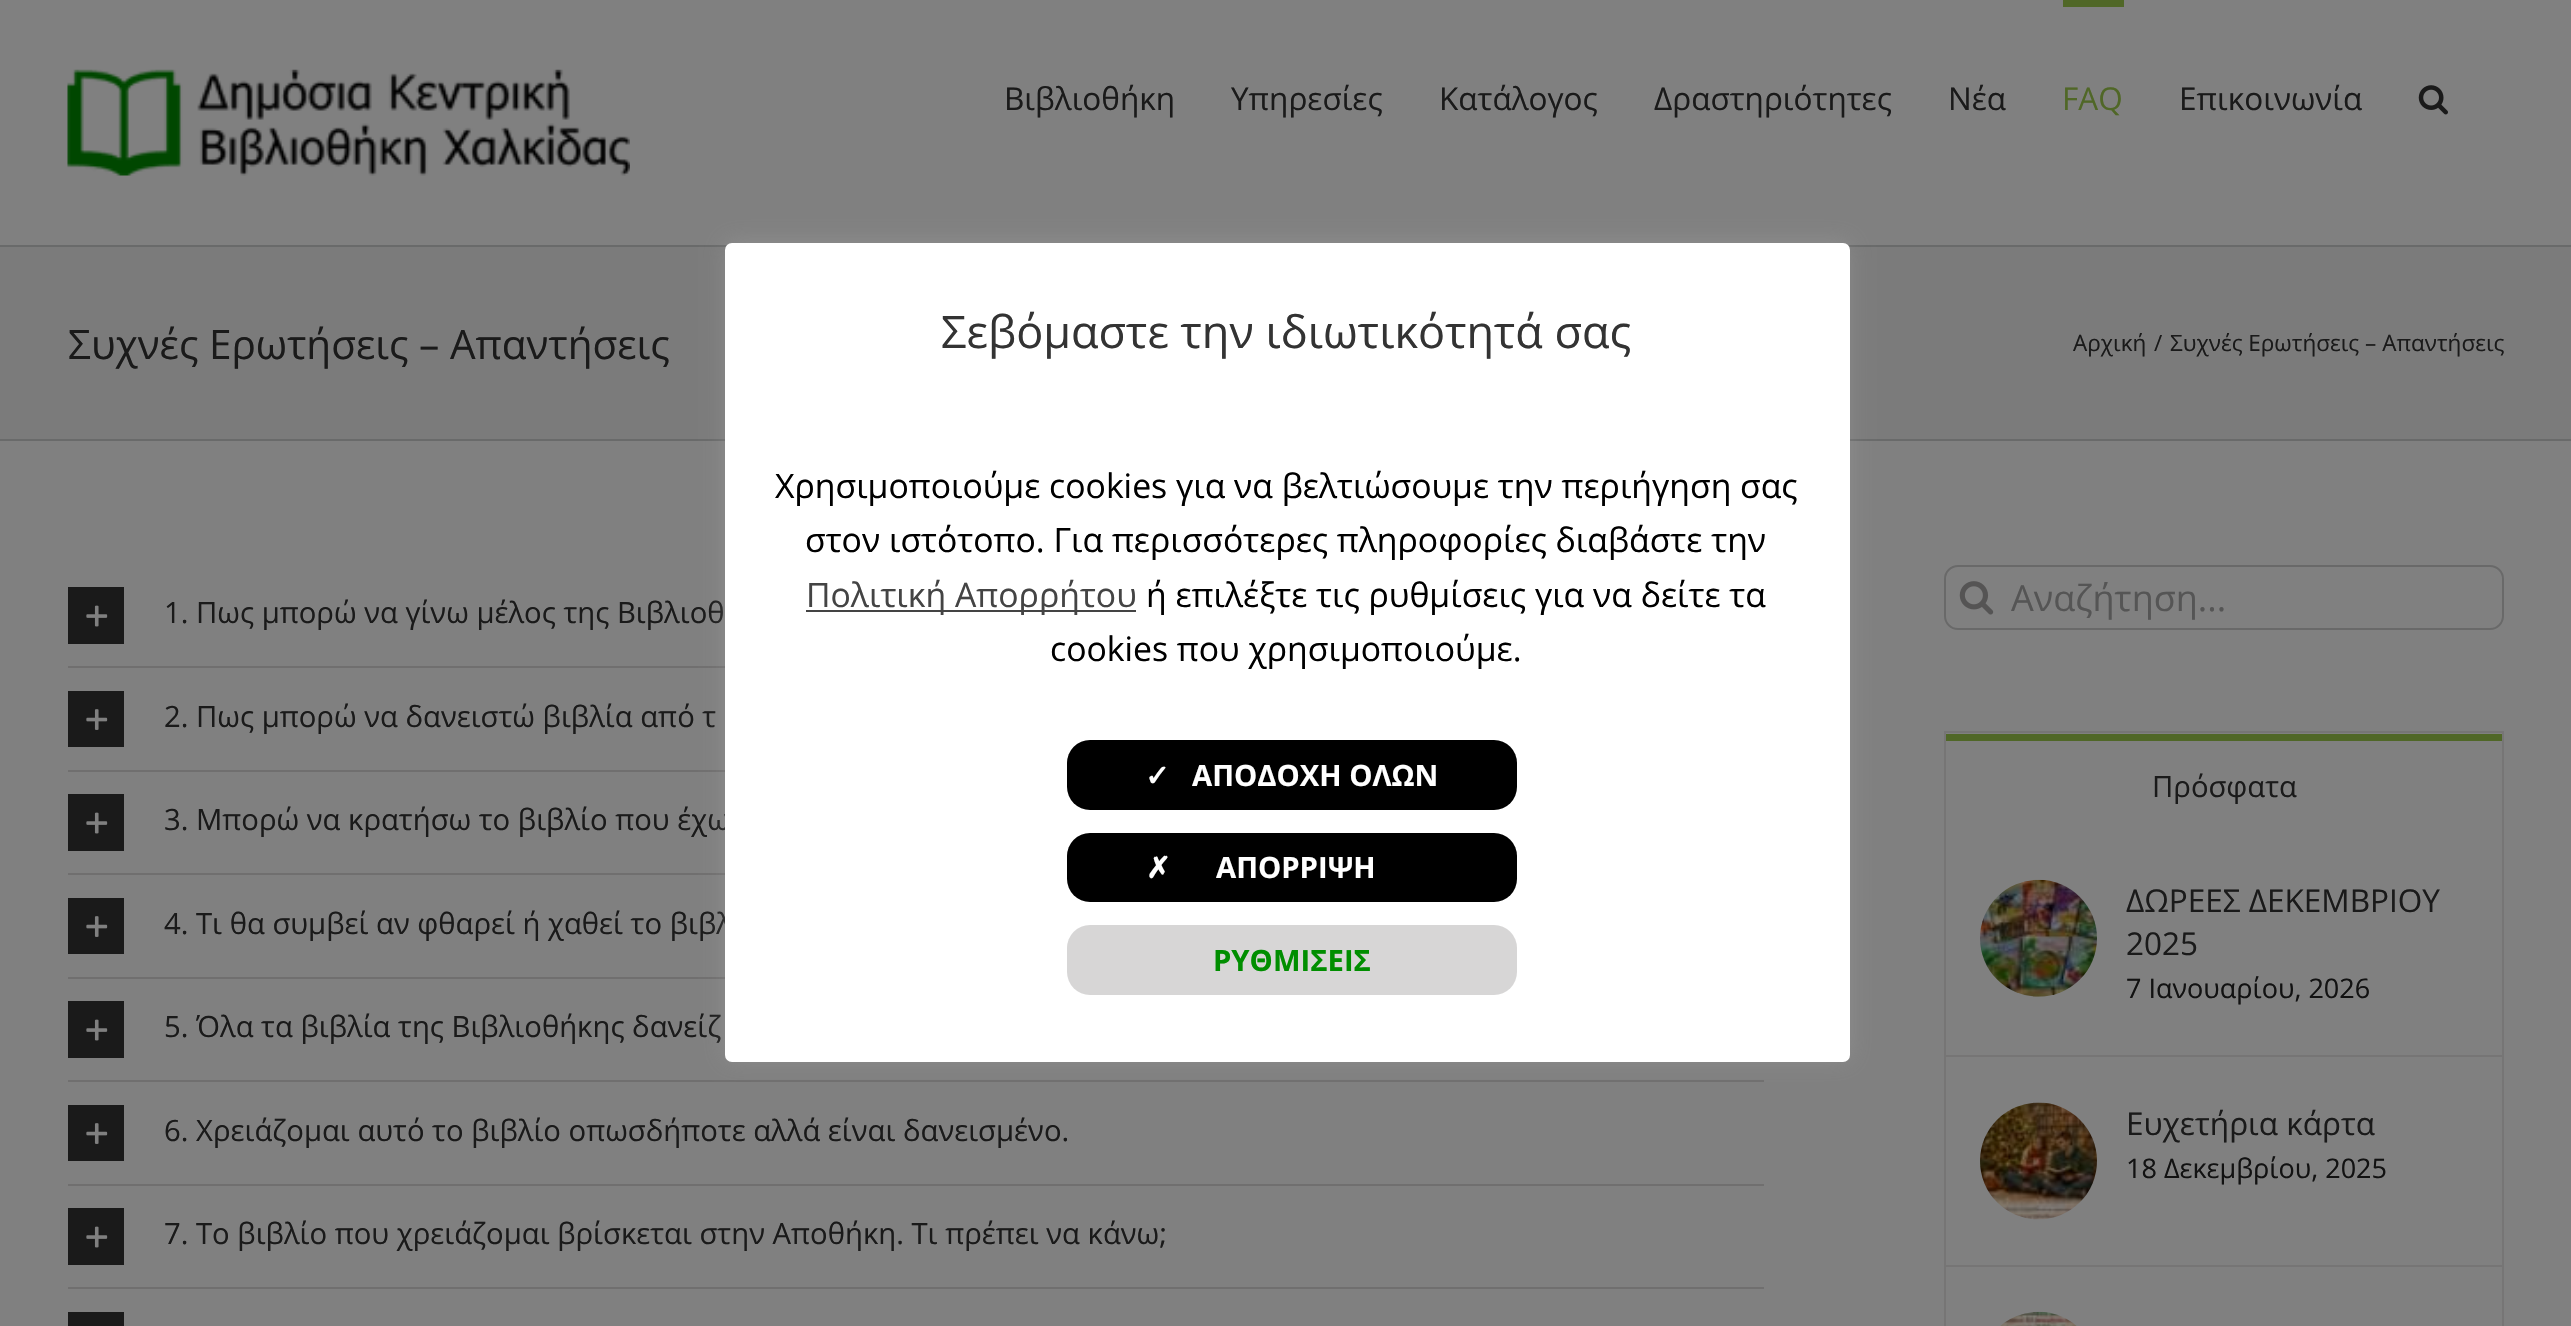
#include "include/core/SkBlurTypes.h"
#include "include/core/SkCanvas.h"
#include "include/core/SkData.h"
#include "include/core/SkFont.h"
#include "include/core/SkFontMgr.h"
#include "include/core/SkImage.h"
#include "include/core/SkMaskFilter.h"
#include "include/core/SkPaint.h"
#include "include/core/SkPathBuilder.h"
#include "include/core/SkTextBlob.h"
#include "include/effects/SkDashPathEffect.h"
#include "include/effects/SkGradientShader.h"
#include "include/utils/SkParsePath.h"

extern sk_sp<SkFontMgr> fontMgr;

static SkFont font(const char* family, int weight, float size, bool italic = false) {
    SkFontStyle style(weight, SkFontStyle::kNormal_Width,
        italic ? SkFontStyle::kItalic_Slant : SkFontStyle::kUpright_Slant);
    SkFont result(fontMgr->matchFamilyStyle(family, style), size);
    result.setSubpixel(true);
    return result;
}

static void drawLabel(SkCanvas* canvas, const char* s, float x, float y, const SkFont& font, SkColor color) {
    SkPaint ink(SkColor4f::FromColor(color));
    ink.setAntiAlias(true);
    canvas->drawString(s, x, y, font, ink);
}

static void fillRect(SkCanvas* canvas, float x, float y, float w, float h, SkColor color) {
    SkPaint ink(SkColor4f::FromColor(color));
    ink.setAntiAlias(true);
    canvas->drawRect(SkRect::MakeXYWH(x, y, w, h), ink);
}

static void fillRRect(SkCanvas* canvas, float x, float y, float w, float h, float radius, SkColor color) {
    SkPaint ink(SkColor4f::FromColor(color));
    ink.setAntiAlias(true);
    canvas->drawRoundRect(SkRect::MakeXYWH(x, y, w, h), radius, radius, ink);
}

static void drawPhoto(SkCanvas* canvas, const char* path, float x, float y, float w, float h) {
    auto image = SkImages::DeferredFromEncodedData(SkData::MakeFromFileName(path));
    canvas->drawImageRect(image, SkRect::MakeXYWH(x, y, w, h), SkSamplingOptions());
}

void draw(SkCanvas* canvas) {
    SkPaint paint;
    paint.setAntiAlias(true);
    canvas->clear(0xFF7B7B7B);
    fillRect(canvas, 0, 0, 2571, 245, 0xFF808080);
    drawPhoto(canvas, "assets/img1.png", 67, 69, 563, 107);
    SkFont font1 = font("Open Sans", 400, 31.5f);
    drawLabel(canvas, "Βιβλιοθήκη", 1004, 110, font1, 0xFF1A1A1A);
    drawLabel(canvas, "Υπηρεσίες", 1231, 110, font1, 0xFF1A1A1A);
    drawLabel(canvas, "Κατάλογος", 1439, 110, font1, 0xFF1A1A1A);
    drawLabel(canvas, "Δραστηριότητες", 1654, 110, font1, 0xFF1A1A1A);
    drawLabel(canvas, "Νέα", 1948, 110, font1, 0xFF1A1A1A);
    fillRect(canvas, 2063, 0, 61, 7, 0xFF506727);
    drawLabel(canvas, "FAQ", 2062, 110, font1, 0xFF506727);
    drawLabel(canvas, "Επικοινωνία", 2179, 110, font1, 0xFF1A1A1A);
    drawPhoto(canvas, "assets/img2.png", 2418, 85, 30, 30);
    fillRect(canvas, 0, 245, 2571, 2, 0xFF696A6A);
    fillRect(canvas, 0, 439, 2571, 2, 0xFF696A6A);
    SkFont font2 = font("Open Sans", 400, 40.5f);
    drawLabel(canvas, "Συχνές Ερωτήσεις – Απαντήσεις", 68, 359, font2, 0xFF1A1A1A);
    SkFont font3 = font("Open Sans", 400, 22.5f);
    drawLabel(canvas, "Αρχική", 2073, 351, font3, 0xFF1A1A1A);
    drawLabel(canvas, "/", 2154, 351, font3, 0xFF1A1A1A);
    drawLabel(canvas, "Συχνές Ερωτήσεις – Απαντήσεις", 2170, 351, font3, 0xFF1A1A1A);
    fillRect(canvas, 0, 441, 2571, 885, 0xFF808080);
    fillRect(canvas, 68, 666, 657, 2, 0xFF706F6F);
    fillRect(canvas, 68, 587, 56, 57, 0xFF1A1A1A);
    drawPhoto(canvas, "assets/img3.png", 86, 605, 22, 22);
    SkFont font4 = font("Open Sans", 400, 29.25f);
    drawLabel(canvas, "1. Πως μπορώ να γίνω μέλος της Βιβλιοθ", 164, 623, font4, 0xFF1A1A1A);
    fillRect(canvas, 68, 770, 657, 2, 0xFF706F6F);
    fillRect(canvas, 68, 691, 56, 56, 0xFF1A1A1A);
    drawPhoto(canvas, "assets/img4.png", 86, 709, 22, 21);
    drawLabel(canvas, "2. Πως μπορώ να δανειστώ βιβλία από τ", 164, 727, font4, 0xFF1A1A1A);
    fillRect(canvas, 68, 873, 657, 2, 0xFF706F6F);
    fillRect(canvas, 68, 794, 56, 57, 0xFF1A1A1A);
    drawPhoto(canvas, "assets/img3.png", 86, 812, 22, 22);
    drawLabel(canvas, "3. Μπορώ να κρατήσω το βιβλίο που έχω", 164, 830, font4, 0xFF1A1A1A);
    fillRect(canvas, 68, 977, 657, 2, 0xFF706F6F);
    fillRect(canvas, 68, 898, 56, 56, 0xFF1A1A1A);
    drawPhoto(canvas, "assets/img4.png", 86, 916, 22, 21);
    drawLabel(canvas, "4. Τι θα συμβεί αν φθαρεί ή χαθεί το βιβλ", 164, 934, font4, 0xFF1A1A1A);
    fillRect(canvas, 68, 1080, 1696, 2, 0xFF706F6F);
    fillRect(canvas, 68, 1001, 56, 57, 0xFF1A1A1A);
    drawPhoto(canvas, "assets/img3.png", 86, 1019, 22, 22);
    drawLabel(canvas, "5. Όλα τα βιβλία της Βιβλιοθήκης δανείζ", 164, 1037, font4, 0xFF1A1A1A);
    fillRect(canvas, 68, 1184, 1696, 2, 0xFF706F6F);
    fillRect(canvas, 68, 1105, 56, 56, 0xFF1A1A1A);
    drawPhoto(canvas, "assets/img4.png", 86, 1123, 22, 21);
    drawLabel(canvas, "6. Χρειάζομαι αυτό το βιβλίο οπωσδήποτε αλλά είναι δανεισμένο.", 164, 1141, font4, 0xFF1A1A1A);
    fillRect(canvas, 68, 1287, 1696, 2, 0xFF706F6F);
    fillRect(canvas, 68, 1208, 56, 57, 0xFF1A1A1A);
    drawPhoto(canvas, "assets/img3.png", 86, 1226, 22, 22);
    drawLabel(canvas, "7. Το βιβλίο που χρειάζομαι βρίσκεται στην Αποθήκη. Τι πρέπει να κάνω;", 164, 1244, font4, 0xFF1A1A1A);
    fillRect(canvas, 68, 1312, 56, 14, 0xFF1A1A1A);
    paint.setStroke(true);
    paint.setStrokeWidth(2);
    paint.setColor(0xFF696969);
    canvas->drawRoundRect(SkRect::MakeXYWH(1945, 566, 558, 63), 13, 13, paint);
    drawPhoto(canvas, "assets/img5.png", 1959, 581, 35, 34);
    SkFont font5 = font("Open Sans", 400, 36);
    drawLabel(canvas, "Αναζήτηση...", 2011, 611, font5, 0xFF555555);
    paint.setColor(0xFF767575);
    canvas->drawRect(SkRect::MakeXYWH(1945, 732, 558, 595), paint);
    fillRect(canvas, 1946, 734, 556, 7, 0xFF506727);
    drawLabel(canvas, "Πρόσφατα", 2152, 797, font4, 0xFF1A1A1A);
    fillRect(canvas, 1946, 1055, 556, 2, 0xFF767575);
    drawPhoto(canvas, "assets/img6.png", 1980, 879, 117, 118);
    drawLabel(canvas, "ΔΩΡΕΕΣ ΔΕΚΕΜΒΡΙΟΥ", 2126, 912, font1, 0xFF1A1A1A);
    drawLabel(canvas, "2025", 2126, 955, font1, 0xFF1A1A1A);
    SkFont font6 = font("Open Sans", 400, 27);
    drawLabel(canvas, "7 Ιανουαρίου, 2026", 2126, 998, font6, 0xFF121212);
    fillRect(canvas, 1946, 1265, 556, 2, 0xFF767575);
    drawPhoto(canvas, "assets/img7.png", 1980, 1102, 117, 118);
    drawLabel(canvas, "Ευχετήρια κάρτα", 2126, 1135, font1, 0xFF1A1A1A);
    drawLabel(canvas, "18 Δεκεμβρίου, 2025", 2126, 1178, font6, 0xFF121212);
    drawPhoto(canvas, "assets/img8.png", 2000, 1311, 77, 15);
    paint.setStroke(false);
    paint.setColor(0x4DACABAB);
    paint.setMaskFilter(SkMaskFilter::MakeBlur(kNormal_SkBlurStyle, 11));
    canvas->drawRoundRect(SkRect::MakeXYWH(725, 241, 1125, 819), 7, 7, paint);
    paint.setMaskFilter(nullptr);
    fillRRect(canvas, 725, 243, 1125, 819, 7, 0xFFFFFFFF);
    SkFont font7 = font("Open Sans", 400, 45);
    drawLabel(canvas, "Σεβόμαστε την ιδιωτικότητά σας", 941, 348, font7, 0xFF333333);
    SkFont font8 = font("Open Sans", 400, 33.75f);
    drawLabel(canvas, "Χρησιμοποιούμε cookies για να βελτιώσουμε την περιήγηση σας", 775, 498, font8, 0xFF000000);
    drawLabel(canvas, "στον ιστότοπο. Για περισσότερες πληροφορίες διαβάστε την", 805, 552, font8, 0xFF000000);
    fillRect(canvas, 806, 610, 330, 2, 0xFF444444);
    drawLabel(canvas, "Πολιτική Απορρήτου", 806, 607, font8, 0xFF444444);
    drawLabel(canvas, "ή επιλέξτε τις ρυθμίσεις για να δείτε τα", 1146, 607, font8, 0xFF000000);
    drawLabel(canvas, "cookies που χρησιμοποιούμε.", 1050, 661, font8, 0xFF000000);
    fillRRect(canvas, 1067, 740, 450, 70, 23, 0xFF000000);
    SkFont font9 = font("DejaVu Sans", 700, 29.25f);
    drawLabel(canvas, "✓", 1145, 786, font9, 0xFFFFFFFF);
    SkFont font10 = font("Open Sans", 700, 29.25f);
    drawLabel(canvas, "ΑΠΟΔΟΧΗ ΟΛΩΝ", 1192, 786, font10, 0xFFFFFFFF);
    fillRRect(canvas, 1067, 833, 450, 69, 23, 0xFF000000);
    drawLabel(canvas, "✗", 1146, 878, font9, 0xFFFFFFFF);
    drawLabel(canvas, "ΑΠΟΡΡΙΨΗ", 1216, 878, font10, 0xFFFFFFFF);
    fillRRect(canvas, 1067, 925, 450, 70, 23, 0xFFD7D6D6);
    drawLabel(canvas, "ΡΥΘΜΙΣΕΙΣ", 1213, 971, font10, 0xFF008E00);
}
